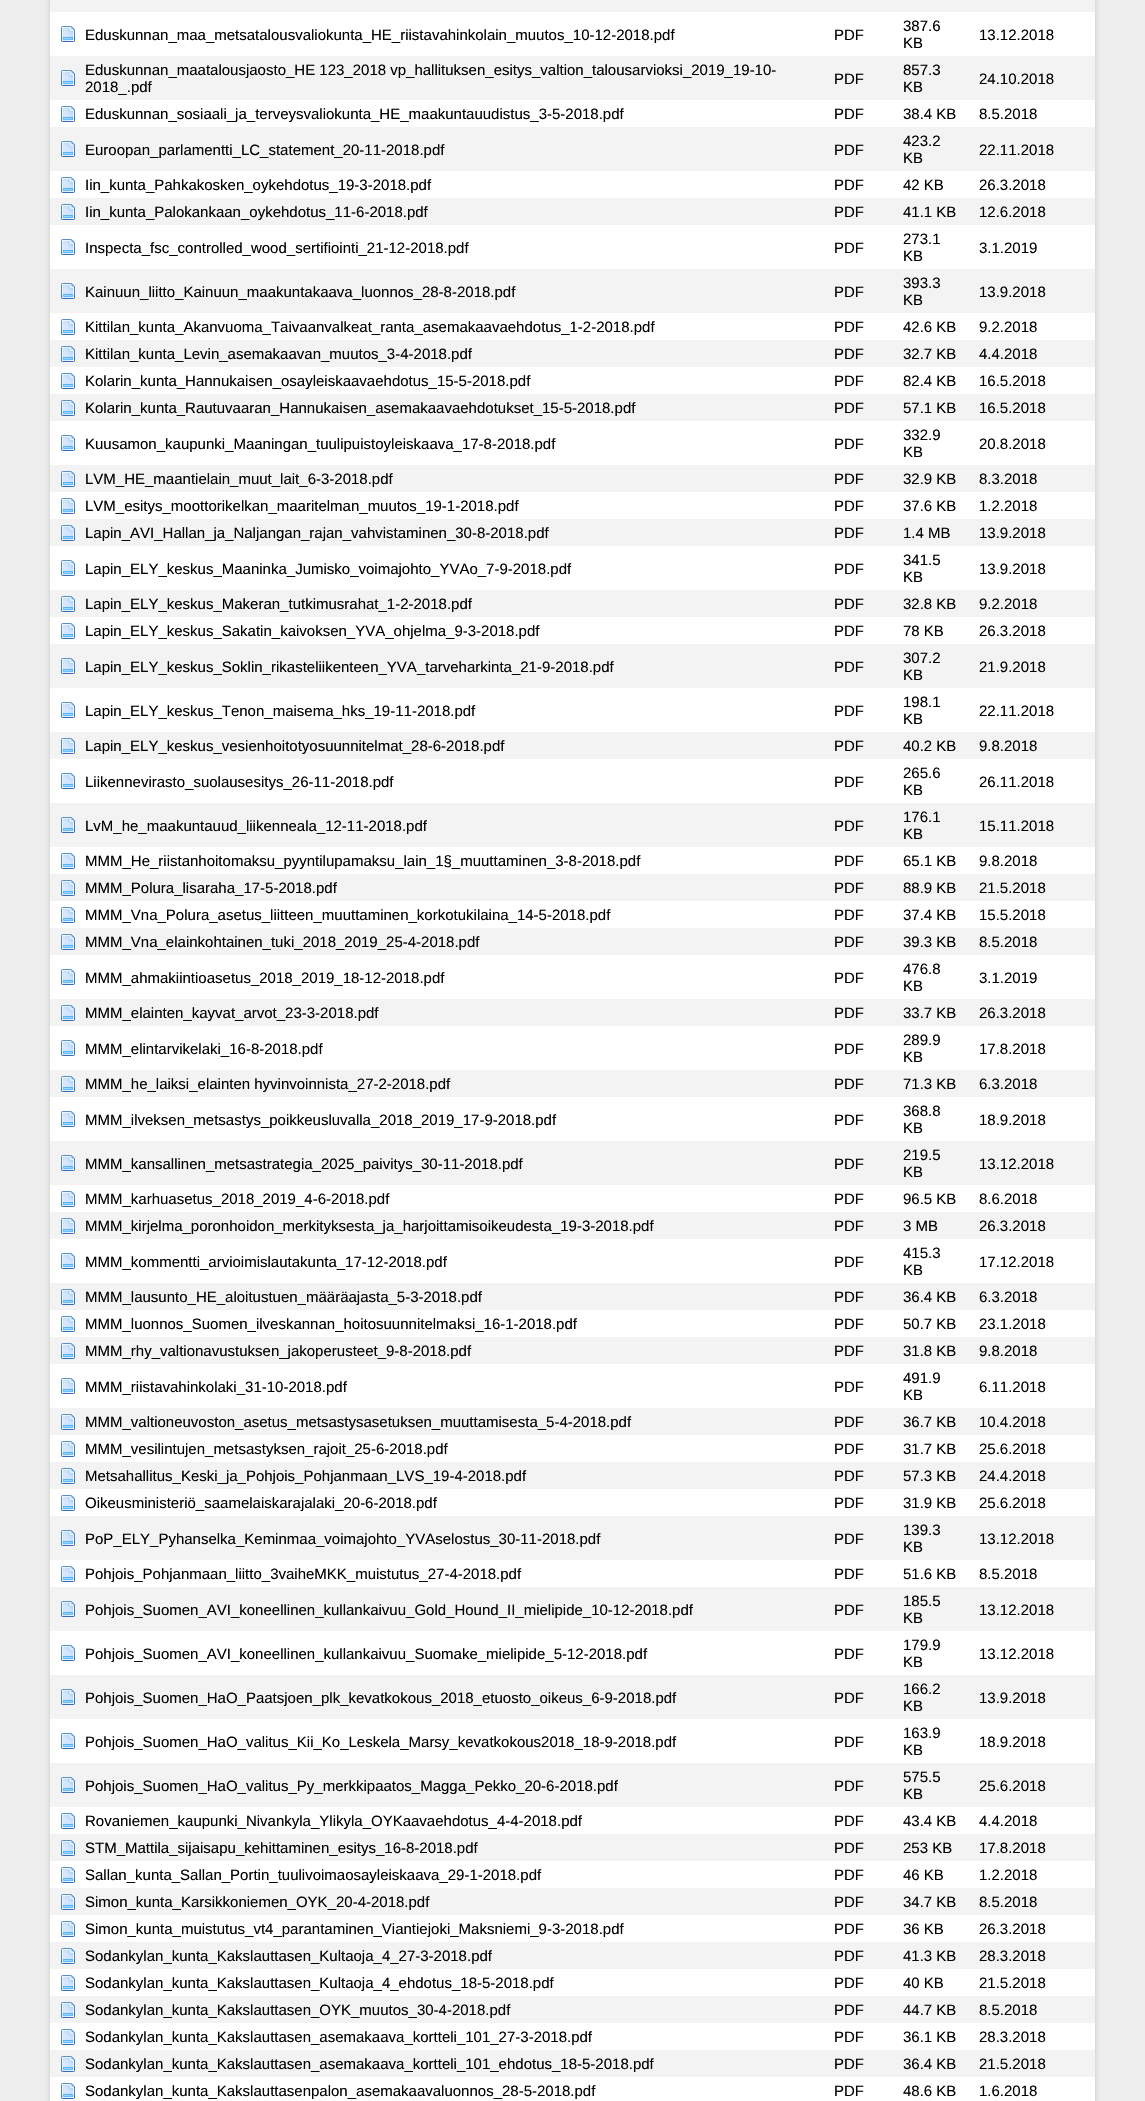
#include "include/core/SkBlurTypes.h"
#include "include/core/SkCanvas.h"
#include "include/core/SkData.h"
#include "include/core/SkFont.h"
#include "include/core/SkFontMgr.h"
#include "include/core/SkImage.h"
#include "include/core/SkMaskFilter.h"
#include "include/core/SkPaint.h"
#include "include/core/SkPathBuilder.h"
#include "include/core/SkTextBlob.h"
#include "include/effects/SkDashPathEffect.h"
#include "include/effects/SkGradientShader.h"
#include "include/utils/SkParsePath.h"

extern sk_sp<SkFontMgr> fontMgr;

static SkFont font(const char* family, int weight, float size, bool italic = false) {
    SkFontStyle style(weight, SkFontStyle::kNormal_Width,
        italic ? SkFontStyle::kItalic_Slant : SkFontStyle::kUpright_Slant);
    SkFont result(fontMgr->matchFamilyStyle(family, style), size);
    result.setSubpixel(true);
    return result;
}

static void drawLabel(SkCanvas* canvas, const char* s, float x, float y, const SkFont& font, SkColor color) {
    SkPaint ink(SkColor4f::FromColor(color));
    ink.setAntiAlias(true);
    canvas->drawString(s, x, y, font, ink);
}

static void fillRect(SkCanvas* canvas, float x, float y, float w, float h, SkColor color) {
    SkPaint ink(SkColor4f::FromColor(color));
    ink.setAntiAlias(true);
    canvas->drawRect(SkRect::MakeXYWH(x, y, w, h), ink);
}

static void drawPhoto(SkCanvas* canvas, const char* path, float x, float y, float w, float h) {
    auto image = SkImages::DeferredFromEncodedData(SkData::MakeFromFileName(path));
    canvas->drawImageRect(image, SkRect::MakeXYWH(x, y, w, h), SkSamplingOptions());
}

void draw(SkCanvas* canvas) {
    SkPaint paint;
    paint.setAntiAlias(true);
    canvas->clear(0xFFEEEEEE);
    paint.setColor(0x80000000);
    paint.setMaskFilter(SkMaskFilter::MakeBlur(kNormal_SkBlurStyle, 5));
    canvas->drawRect(SkRect::MakeXYWH(55, -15, 1035, 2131), paint);
    paint.setMaskFilter(nullptr);
    fillRect(canvas, 50, 0, 1045, 2077, 0xFFF3F3F3);
    fillRect(canvas, 50, 12, 1045, 44, 0xFFFFFFFF);
    drawPhoto(canvas, "assets/img1.png", 61, 26, 14, 16);
    SkFont font1 = font("Liberation Sans", 400, 15);
    drawLabel(canvas, "Eduskunnan_maa_metsatalousvaliokunta_HE_riistavahinkolain_muutos_10-12-2018.pdf", 85, 40, font1, 0xFF000000);
    drawLabel(canvas, "PDF", 834, 40, font1, 0xFF000000);
    drawLabel(canvas, "387.6", 903, 31, font1, 0xFF000000);
    drawLabel(canvas, "KB", 903, 48, font1, 0xFF000000);
    drawLabel(canvas, "13.12.2018", 979, 40, font1, 0xFF000000);
    drawPhoto(canvas, "assets/img2.png", 61, 70, 14, 16);
    drawLabel(canvas, "Eduskunnan_maatalousjaosto_HE 123_2018 vp_hallituksen_esitys_valtion_talousarvioksi_2019_19-10-", 85, 75, font1, 0xFF000000);
    drawLabel(canvas, "2018_.pdf", 85, 92, font1, 0xFF000000);
    drawLabel(canvas, "PDF", 834, 84, font1, 0xFF000000);
    drawLabel(canvas, "857.3", 903, 75, font1, 0xFF000000);
    drawLabel(canvas, "KB", 903, 92, font1, 0xFF000000);
    drawLabel(canvas, "24.10.2018", 979, 84, font1, 0xFF000000);
    fillRect(canvas, 50, 100, 1045, 27, 0xFFFFFFFF);
    drawPhoto(canvas, "assets/img1.png", 61, 106, 14, 16);
    drawLabel(canvas, "Eduskunnan_sosiaali_ja_terveysvaliokunta_HE_maakuntauudistus_3-5-2018.pdf", 85, 119, font1, 0xFF000000);
    drawLabel(canvas, "PDF", 834, 119, font1, 0xFF000000);
    drawLabel(canvas, "38.4 KB", 903, 119, font1, 0xFF000000);
    drawLabel(canvas, "8.5.2018", 979, 119, font1, 0xFF000000);
    drawPhoto(canvas, "assets/img2.png", 61, 141, 14, 16);
    drawLabel(canvas, "Euroopan_parlamentti_LC_statement_20-11-2018.pdf", 85, 155, font1, 0xFF000000);
    drawLabel(canvas, "PDF", 834, 155, font1, 0xFF000000);
    drawLabel(canvas, "423.2", 903, 146, font1, 0xFF000000);
    drawLabel(canvas, "KB", 903, 163, font1, 0xFF000000);
    drawLabel(canvas, "22.11.2018", 979, 155, font1, 0xFF000000);
    fillRect(canvas, 50, 171, 1045, 27, 0xFFFFFFFF);
    drawPhoto(canvas, "assets/img1.png", 61, 177, 14, 16);
    drawLabel(canvas, "Iin_kunta_Pahkakosken_oykehdotus_19-3-2018.pdf", 85, 190, font1, 0xFF000000);
    drawLabel(canvas, "PDF", 834, 190, font1, 0xFF000000);
    drawLabel(canvas, "42 KB", 903, 190, font1, 0xFF000000);
    drawLabel(canvas, "26.3.2018", 979, 190, font1, 0xFF000000);
    drawPhoto(canvas, "assets/img2.png", 61, 204, 14, 16);
    drawLabel(canvas, "Iin_kunta_Palokankaan_oykehdotus_11-6-2018.pdf", 85, 217, font1, 0xFF000000);
    drawLabel(canvas, "PDF", 834, 217, font1, 0xFF000000);
    drawLabel(canvas, "41.1 KB", 903, 217, font1, 0xFF000000);
    drawLabel(canvas, "12.6.2018", 979, 217, font1, 0xFF000000);
    fillRect(canvas, 50, 225, 1045, 44, 0xFFFFFFFF);
    drawPhoto(canvas, "assets/img1.png", 61, 239, 14, 16);
    drawLabel(canvas, "Inspecta_fsc_controlled_wood_sertifiointi_21-12-2018.pdf", 85, 253, font1, 0xFF000000);
    drawLabel(canvas, "PDF", 834, 253, font1, 0xFF000000);
    drawLabel(canvas, "273.1", 903, 244, font1, 0xFF000000);
    drawLabel(canvas, "KB", 903, 261, font1, 0xFF000000);
    drawLabel(canvas, "3.1.2019", 979, 253, font1, 0xFF000000);
    drawPhoto(canvas, "assets/img2.png", 61, 283, 14, 16);
    drawLabel(canvas, "Kainuun_liitto_Kainuun_maakuntakaava_luonnos_28-8-2018.pdf", 85, 297, font1, 0xFF000000);
    drawLabel(canvas, "PDF", 834, 297, font1, 0xFF000000);
    drawLabel(canvas, "393.3", 903, 288, font1, 0xFF000000);
    drawLabel(canvas, "KB", 903, 305, font1, 0xFF000000);
    drawLabel(canvas, "13.9.2018", 979, 297, font1, 0xFF000000);
    fillRect(canvas, 50, 313, 1045, 27, 0xFFFFFFFF);
    drawPhoto(canvas, "assets/img1.png", 61, 319, 14, 16);
    drawLabel(canvas, "Kittilan_kunta_Akanvuoma_Taivaanvalkeat_ranta_asemakaavaehdotus_1-2-2018.pdf", 85, 332, font1, 0xFF000000);
    drawLabel(canvas, "PDF", 834, 332, font1, 0xFF000000);
    drawLabel(canvas, "42.6 KB", 903, 332, font1, 0xFF000000);
    drawLabel(canvas, "9.2.2018", 979, 332, font1, 0xFF000000);
    drawPhoto(canvas, "assets/img2.png", 61, 346, 14, 16);
    drawLabel(canvas, "Kittilan_kunta_Levin_asemakaavan_muutos_3-4-2018.pdf", 85, 359, font1, 0xFF000000);
    drawLabel(canvas, "PDF", 834, 359, font1, 0xFF000000);
    drawLabel(canvas, "32.7 KB", 903, 359, font1, 0xFF000000);
    drawLabel(canvas, "4.4.2018", 979, 359, font1, 0xFF000000);
    fillRect(canvas, 50, 367, 1045, 27, 0xFFFFFFFF);
    drawPhoto(canvas, "assets/img1.png", 61, 373, 14, 16);
    drawLabel(canvas, "Kolarin_kunta_Hannukaisen_osayleiskaavaehdotus_15-5-2018.pdf", 85, 386, font1, 0xFF000000);
    drawLabel(canvas, "PDF", 834, 386, font1, 0xFF000000);
    drawLabel(canvas, "82.4 KB", 903, 386, font1, 0xFF000000);
    drawLabel(canvas, "16.5.2018", 979, 386, font1, 0xFF000000);
    drawPhoto(canvas, "assets/img2.png", 61, 400, 14, 16);
    drawLabel(canvas, "Kolarin_kunta_Rautuvaaran_Hannukaisen_asemakaavaehdotukset_15-5-2018.pdf", 85, 413, font1, 0xFF000000);
    drawLabel(canvas, "PDF", 834, 413, font1, 0xFF000000);
    drawLabel(canvas, "57.1 KB", 903, 413, font1, 0xFF000000);
    drawLabel(canvas, "16.5.2018", 979, 413, font1, 0xFF000000);
    fillRect(canvas, 50, 421, 1045, 44, 0xFFFFFFFF);
    drawPhoto(canvas, "assets/img1.png", 61, 435, 14, 16);
    drawLabel(canvas, "Kuusamon_kaupunki_Maaningan_tuulipuistoyleiskaava_17-8-2018.pdf", 85, 449, font1, 0xFF000000);
    drawLabel(canvas, "PDF", 834, 449, font1, 0xFF000000);
    drawLabel(canvas, "332.9", 903, 440, font1, 0xFF000000);
    drawLabel(canvas, "KB", 903, 457, font1, 0xFF000000);
    drawLabel(canvas, "20.8.2018", 979, 449, font1, 0xFF000000);
    drawPhoto(canvas, "assets/img2.png", 61, 471, 14, 16);
    drawLabel(canvas, "LVM_HE_maantielain_muut_lait_6-3-2018.pdf", 85, 484, font1, 0xFF000000);
    drawLabel(canvas, "PDF", 834, 484, font1, 0xFF000000);
    drawLabel(canvas, "32.9 KB", 903, 484, font1, 0xFF000000);
    drawLabel(canvas, "8.3.2018", 979, 484, font1, 0xFF000000);
    fillRect(canvas, 50, 492, 1045, 27, 0xFFFFFFFF);
    drawPhoto(canvas, "assets/img1.png", 61, 498, 14, 16);
    drawLabel(canvas, "LVM_esitys_moottorikelkan_maaritelman_muutos_19-1-2018.pdf", 85, 511, font1, 0xFF000000);
    drawLabel(canvas, "PDF", 834, 511, font1, 0xFF000000);
    drawLabel(canvas, "37.6 KB", 903, 511, font1, 0xFF000000);
    drawLabel(canvas, "1.2.2018", 979, 511, font1, 0xFF000000);
    drawPhoto(canvas, "assets/img2.png", 61, 525, 14, 16);
    drawLabel(canvas, "Lapin_AVI_Hallan_ja_Naljangan_rajan_vahvistaminen_30-8-2018.pdf", 85, 538, font1, 0xFF000000);
    drawLabel(canvas, "PDF", 834, 538, font1, 0xFF000000);
    drawLabel(canvas, "1.4 MB", 903, 538, font1, 0xFF000000);
    drawLabel(canvas, "13.9.2018", 979, 538, font1, 0xFF000000);
    fillRect(canvas, 50, 546, 1045, 44, 0xFFFFFFFF);
    drawPhoto(canvas, "assets/img1.png", 61, 560, 14, 16);
    drawLabel(canvas, "Lapin_ELY_keskus_Maaninka_Jumisko_voimajohto_YVAo_7-9-2018.pdf", 85, 574, font1, 0xFF000000);
    drawLabel(canvas, "PDF", 834, 574, font1, 0xFF000000);
    drawLabel(canvas, "341.5", 903, 565, font1, 0xFF000000);
    drawLabel(canvas, "KB", 903, 582, font1, 0xFF000000);
    drawLabel(canvas, "13.9.2018", 979, 574, font1, 0xFF000000);
    drawPhoto(canvas, "assets/img2.png", 61, 596, 14, 16);
    drawLabel(canvas, "Lapin_ELY_keskus_Makeran_tutkimusrahat_1-2-2018.pdf", 85, 609, font1, 0xFF000000);
    drawLabel(canvas, "PDF", 834, 609, font1, 0xFF000000);
    drawLabel(canvas, "32.8 KB", 903, 609, font1, 0xFF000000);
    drawLabel(canvas, "9.2.2018", 979, 609, font1, 0xFF000000);
    fillRect(canvas, 50, 617, 1045, 27, 0xFFFFFFFF);
    drawPhoto(canvas, "assets/img1.png", 61, 623, 14, 16);
    drawLabel(canvas, "Lapin_ELY_keskus_Sakatin_kaivoksen_YVA_ohjelma_9-3-2018.pdf", 85, 636, font1, 0xFF000000);
    drawLabel(canvas, "PDF", 834, 636, font1, 0xFF000000);
    drawLabel(canvas, "78 KB", 903, 636, font1, 0xFF000000);
    drawLabel(canvas, "26.3.2018", 979, 636, font1, 0xFF000000);
    drawPhoto(canvas, "assets/img2.png", 61, 658, 14, 16);
    drawLabel(canvas, "Lapin_ELY_keskus_Soklin_rikasteliikenteen_YVA_tarveharkinta_21-9-2018.pdf", 85, 672, font1, 0xFF000000);
    drawLabel(canvas, "PDF", 834, 672, font1, 0xFF000000);
    drawLabel(canvas, "307.2", 903, 663, font1, 0xFF000000);
    drawLabel(canvas, "KB", 903, 680, font1, 0xFF000000);
    drawLabel(canvas, "21.9.2018", 979, 672, font1, 0xFF000000);
    fillRect(canvas, 50, 688, 1045, 44, 0xFFFFFFFF);
    drawPhoto(canvas, "assets/img1.png", 61, 702, 14, 16);
    drawLabel(canvas, "Lapin_ELY_keskus_Tenon_maisema_hks_19-11-2018.pdf", 85, 716, font1, 0xFF000000);
    drawLabel(canvas, "PDF", 834, 716, font1, 0xFF000000);
    drawLabel(canvas, "198.1", 903, 707, font1, 0xFF000000);
    drawLabel(canvas, "KB", 903, 724, font1, 0xFF000000);
    drawLabel(canvas, "22.11.2018", 979, 716, font1, 0xFF000000);
    drawPhoto(canvas, "assets/img2.png", 61, 738, 14, 16);
    drawLabel(canvas, "Lapin_ELY_keskus_vesienhoitotyosuunnitelmat_28-6-2018.pdf", 85, 751, font1, 0xFF000000);
    drawLabel(canvas, "PDF", 834, 751, font1, 0xFF000000);
    drawLabel(canvas, "40.2 KB", 903, 751, font1, 0xFF000000);
    drawLabel(canvas, "9.8.2018", 979, 751, font1, 0xFF000000);
    fillRect(canvas, 50, 759, 1045, 44, 0xFFFFFFFF);
    drawPhoto(canvas, "assets/img1.png", 61, 773, 14, 16);
    drawLabel(canvas, "Liikennevirasto_suolausesitys_26-11-2018.pdf", 85, 787, font1, 0xFF000000);
    drawLabel(canvas, "PDF", 834, 787, font1, 0xFF000000);
    drawLabel(canvas, "265.6", 903, 778, font1, 0xFF000000);
    drawLabel(canvas, "KB", 903, 795, font1, 0xFF000000);
    drawLabel(canvas, "26.11.2018", 979, 787, font1, 0xFF000000);
    drawPhoto(canvas, "assets/img2.png", 61, 817, 14, 16);
    drawLabel(canvas, "LvM_he_maakuntauud_liikenneala_12-11-2018.pdf", 85, 831, font1, 0xFF000000);
    drawLabel(canvas, "PDF", 834, 831, font1, 0xFF000000);
    drawLabel(canvas, "176.1", 903, 822, font1, 0xFF000000);
    drawLabel(canvas, "KB", 903, 839, font1, 0xFF000000);
    drawLabel(canvas, "15.11.2018", 979, 831, font1, 0xFF000000);
    fillRect(canvas, 50, 847, 1045, 27, 0xFFFFFFFF);
    drawPhoto(canvas, "assets/img1.png", 61, 853, 14, 16);
    drawLabel(canvas, "MMM_He_riistanhoitomaksu_pyyntilupamaksu_lain_1§_muuttaminen_3-8-2018.pdf", 85, 866, font1, 0xFF000000);
    drawLabel(canvas, "PDF", 834, 866, font1, 0xFF000000);
    drawLabel(canvas, "65.1 KB", 903, 866, font1, 0xFF000000);
    drawLabel(canvas, "9.8.2018", 979, 866, font1, 0xFF000000);
    drawPhoto(canvas, "assets/img2.png", 61, 880, 14, 16);
    drawLabel(canvas, "MMM_Polura_lisaraha_17-5-2018.pdf", 85, 893, font1, 0xFF000000);
    drawLabel(canvas, "PDF", 834, 893, font1, 0xFF000000);
    drawLabel(canvas, "88.9 KB", 903, 893, font1, 0xFF000000);
    drawLabel(canvas, "21.5.2018", 979, 893, font1, 0xFF000000);
    fillRect(canvas, 50, 901, 1045, 27, 0xFFFFFFFF);
    drawPhoto(canvas, "assets/img1.png", 61, 907, 14, 16);
    drawLabel(canvas, "MMM_Vna_Polura_asetus_liitteen_muuttaminen_korkotukilaina_14-5-2018.pdf", 85, 920, font1, 0xFF000000);
    drawLabel(canvas, "PDF", 834, 920, font1, 0xFF000000);
    drawLabel(canvas, "37.4 KB", 903, 920, font1, 0xFF000000);
    drawLabel(canvas, "15.5.2018", 979, 920, font1, 0xFF000000);
    drawPhoto(canvas, "assets/img2.png", 61, 934, 14, 16);
    drawLabel(canvas, "MMM_Vna_elainkohtainen_tuki_2018_2019_25-4-2018.pdf", 85, 947, font1, 0xFF000000);
    drawLabel(canvas, "PDF", 834, 947, font1, 0xFF000000);
    drawLabel(canvas, "39.3 KB", 903, 947, font1, 0xFF000000);
    drawLabel(canvas, "8.5.2018", 979, 947, font1, 0xFF000000);
    fillRect(canvas, 50, 955, 1045, 44, 0xFFFFFFFF);
    drawPhoto(canvas, "assets/img1.png", 61, 969, 14, 16);
    drawLabel(canvas, "MMM_ahmakiintioasetus_2018_2019_18-12-2018.pdf", 85, 983, font1, 0xFF000000);
    drawLabel(canvas, "PDF", 834, 983, font1, 0xFF000000);
    drawLabel(canvas, "476.8", 903, 974, font1, 0xFF000000);
    drawLabel(canvas, "KB", 903, 991, font1, 0xFF000000);
    drawLabel(canvas, "3.1.2019", 979, 983, font1, 0xFF000000);
    drawPhoto(canvas, "assets/img2.png", 61, 1005, 14, 16);
    drawLabel(canvas, "MMM_elainten_kayvat_arvot_23-3-2018.pdf", 85, 1018, font1, 0xFF000000);
    drawLabel(canvas, "PDF", 834, 1018, font1, 0xFF000000);
    drawLabel(canvas, "33.7 KB", 903, 1018, font1, 0xFF000000);
    drawLabel(canvas, "26.3.2018", 979, 1018, font1, 0xFF000000);
    fillRect(canvas, 50, 1026, 1045, 44, 0xFFFFFFFF);
    drawPhoto(canvas, "assets/img1.png", 61, 1040, 14, 16);
    drawLabel(canvas, "MMM_elintarvikelaki_16-8-2018.pdf", 85, 1054, font1, 0xFF000000);
    drawLabel(canvas, "PDF", 834, 1054, font1, 0xFF000000);
    drawLabel(canvas, "289.9", 903, 1045, font1, 0xFF000000);
    drawLabel(canvas, "KB", 903, 1062, font1, 0xFF000000);
    drawLabel(canvas, "17.8.2018", 979, 1054, font1, 0xFF000000);
    drawPhoto(canvas, "assets/img2.png", 61, 1076, 14, 16);
    drawLabel(canvas, "MMM_he_laiksi_elainten hyvinvoinnista_27-2-2018.pdf", 85, 1089, font1, 0xFF000000);
    drawLabel(canvas, "PDF", 834, 1089, font1, 0xFF000000);
    drawLabel(canvas, "71.3 KB", 903, 1089, font1, 0xFF000000);
    drawLabel(canvas, "6.3.2018", 979, 1089, font1, 0xFF000000);
    fillRect(canvas, 50, 1097, 1045, 44, 0xFFFFFFFF);
    drawPhoto(canvas, "assets/img1.png", 61, 1111, 14, 16);
    drawLabel(canvas, "MMM_ilveksen_metsastys_poikkeusluvalla_2018_2019_17-9-2018.pdf", 85, 1125, font1, 0xFF000000);
    drawLabel(canvas, "PDF", 834, 1125, font1, 0xFF000000);
    drawLabel(canvas, "368.8", 903, 1116, font1, 0xFF000000);
    drawLabel(canvas, "KB", 903, 1133, font1, 0xFF000000);
    drawLabel(canvas, "18.9.2018", 979, 1125, font1, 0xFF000000);
    drawPhoto(canvas, "assets/img2.png", 61, 1155, 14, 16);
    drawLabel(canvas, "MMM_kansallinen_metsastrategia_2025_paivitys_30-11-2018.pdf", 85, 1169, font1, 0xFF000000);
    drawLabel(canvas, "PDF", 834, 1169, font1, 0xFF000000);
    drawLabel(canvas, "219.5", 903, 1160, font1, 0xFF000000);
    drawLabel(canvas, "KB", 903, 1177, font1, 0xFF000000);
    drawLabel(canvas, "13.12.2018", 979, 1169, font1, 0xFF000000);
    fillRect(canvas, 50, 1185, 1045, 27, 0xFFFFFFFF);
    drawPhoto(canvas, "assets/img1.png", 61, 1191, 14, 16);
    drawLabel(canvas, "MMM_karhuasetus_2018_2019_4-6-2018.pdf", 85, 1204, font1, 0xFF000000);
    drawLabel(canvas, "PDF", 834, 1204, font1, 0xFF000000);
    drawLabel(canvas, "96.5 KB", 903, 1204, font1, 0xFF000000);
    drawLabel(canvas, "8.6.2018", 979, 1204, font1, 0xFF000000);
    drawPhoto(canvas, "assets/img2.png", 61, 1218, 14, 16);
    drawLabel(canvas, "MMM_kirjelma_poronhoidon_merkityksesta_ja_harjoittamisoikeudesta_19-3-2018.pdf", 85, 1231, font1, 0xFF000000);
    drawLabel(canvas, "PDF", 834, 1231, font1, 0xFF000000);
    drawLabel(canvas, "3 MB", 903, 1231, font1, 0xFF000000);
    drawLabel(canvas, "26.3.2018", 979, 1231, font1, 0xFF000000);
    fillRect(canvas, 50, 1239, 1045, 44, 0xFFFFFFFF);
    drawPhoto(canvas, "assets/img1.png", 61, 1253, 14, 16);
    drawLabel(canvas, "MMM_kommentti_arvioimislautakunta_17-12-2018.pdf", 85, 1267, font1, 0xFF000000);
    drawLabel(canvas, "PDF", 834, 1267, font1, 0xFF000000);
    drawLabel(canvas, "415.3", 903, 1258, font1, 0xFF000000);
    drawLabel(canvas, "KB", 903, 1275, font1, 0xFF000000);
    drawLabel(canvas, "17.12.2018", 979, 1267, font1, 0xFF000000);
    drawPhoto(canvas, "assets/img2.png", 61, 1289, 14, 16);
    drawLabel(canvas, "MMM_lausunto_HE_aloitustuen_määräajasta_5-3-2018.pdf", 85, 1302, font1, 0xFF000000);
    drawLabel(canvas, "PDF", 834, 1302, font1, 0xFF000000);
    drawLabel(canvas, "36.4 KB", 903, 1302, font1, 0xFF000000);
    drawLabel(canvas, "6.3.2018", 979, 1302, font1, 0xFF000000);
    fillRect(canvas, 50, 1310, 1045, 27, 0xFFFFFFFF);
    drawPhoto(canvas, "assets/img1.png", 61, 1316, 14, 16);
    drawLabel(canvas, "MMM_luonnos_Suomen_ilveskannan_hoitosuunnitelmaksi_16-1-2018.pdf", 85, 1329, font1, 0xFF000000);
    drawLabel(canvas, "PDF", 834, 1329, font1, 0xFF000000);
    drawLabel(canvas, "50.7 KB", 903, 1329, font1, 0xFF000000);
    drawLabel(canvas, "23.1.2018", 979, 1329, font1, 0xFF000000);
    drawPhoto(canvas, "assets/img2.png", 61, 1343, 14, 16);
    drawLabel(canvas, "MMM_rhy_valtionavustuksen_jakoperusteet_9-8-2018.pdf", 85, 1356, font1, 0xFF000000);
    drawLabel(canvas, "PDF", 834, 1356, font1, 0xFF000000);
    drawLabel(canvas, "31.8 KB", 903, 1356, font1, 0xFF000000);
    drawLabel(canvas, "9.8.2018", 979, 1356, font1, 0xFF000000);
    fillRect(canvas, 50, 1364, 1045, 44, 0xFFFFFFFF);
    drawPhoto(canvas, "assets/img1.png", 61, 1378, 14, 16);
    drawLabel(canvas, "MMM_riistavahinkolaki_31-10-2018.pdf", 85, 1392, font1, 0xFF000000);
    drawLabel(canvas, "PDF", 834, 1392, font1, 0xFF000000);
    drawLabel(canvas, "491.9", 903, 1383, font1, 0xFF000000);
    drawLabel(canvas, "KB", 903, 1400, font1, 0xFF000000);
    drawLabel(canvas, "6.11.2018", 979, 1392, font1, 0xFF000000);
    drawPhoto(canvas, "assets/img2.png", 61, 1414, 14, 16);
    drawLabel(canvas, "MMM_valtioneuvoston_asetus_metsastysasetuksen_muuttamisesta_5-4-2018.pdf", 85, 1427, font1, 0xFF000000);
    drawLabel(canvas, "PDF", 834, 1427, font1, 0xFF000000);
    drawLabel(canvas, "36.7 KB", 903, 1427, font1, 0xFF000000);
    drawLabel(canvas, "10.4.2018", 979, 1427, font1, 0xFF000000);
    fillRect(canvas, 50, 1435, 1045, 27, 0xFFFFFFFF);
    drawPhoto(canvas, "assets/img1.png", 61, 1441, 14, 16);
    drawLabel(canvas, "MMM_vesilintujen_metsastyksen_rajoit_25-6-2018.pdf", 85, 1454, font1, 0xFF000000);
    drawLabel(canvas, "PDF", 834, 1454, font1, 0xFF000000);
    drawLabel(canvas, "31.7 KB", 903, 1454, font1, 0xFF000000);
    drawLabel(canvas, "25.6.2018", 979, 1454, font1, 0xFF000000);
    drawPhoto(canvas, "assets/img2.png", 61, 1468, 14, 16);
    drawLabel(canvas, "Metsahallitus_Keski_ja_Pohjois_Pohjanmaan_LVS_19-4-2018.pdf", 85, 1481, font1, 0xFF000000);
    drawLabel(canvas, "PDF", 834, 1481, font1, 0xFF000000);
    drawLabel(canvas, "57.3 KB", 903, 1481, font1, 0xFF000000);
    drawLabel(canvas, "24.4.2018", 979, 1481, font1, 0xFF000000);
    fillRect(canvas, 50, 1489, 1045, 27, 0xFFFFFFFF);
    drawPhoto(canvas, "assets/img1.png", 61, 1495, 14, 16);
    drawLabel(canvas, "Oikeusministeriö_saamelaiskarajalaki_20-6-2018.pdf", 85, 1508, font1, 0xFF000000);
    drawLabel(canvas, "PDF", 834, 1508, font1, 0xFF000000);
    drawLabel(canvas, "31.9 KB", 903, 1508, font1, 0xFF000000);
    drawLabel(canvas, "25.6.2018", 979, 1508, font1, 0xFF000000);
    drawPhoto(canvas, "assets/img2.png", 61, 1530, 14, 16);
    drawLabel(canvas, "PoP_ELY_Pyhanselka_Keminmaa_voimajohto_YVAselostus_30-11-2018.pdf", 85, 1544, font1, 0xFF000000);
    drawLabel(canvas, "PDF", 834, 1544, font1, 0xFF000000);
    drawLabel(canvas, "139.3", 903, 1535, font1, 0xFF000000);
    drawLabel(canvas, "KB", 903, 1552, font1, 0xFF000000);
    drawLabel(canvas, "13.12.2018", 979, 1544, font1, 0xFF000000);
    fillRect(canvas, 50, 1560, 1045, 27, 0xFFFFFFFF);
    drawPhoto(canvas, "assets/img1.png", 61, 1566, 14, 16);
    drawLabel(canvas, "Pohjois_Pohjanmaan_liitto_3vaiheMKK_muistutus_27-4-2018.pdf", 85, 1579, font1, 0xFF000000);
    drawLabel(canvas, "PDF", 834, 1579, font1, 0xFF000000);
    drawLabel(canvas, "51.6 KB", 903, 1579, font1, 0xFF000000);
    drawLabel(canvas, "8.5.2018", 979, 1579, font1, 0xFF000000);
    drawPhoto(canvas, "assets/img2.png", 61, 1601, 14, 16);
    drawLabel(canvas, "Pohjois_Suomen_AVI_koneellinen_kullankaivuu_Gold_Hound_II_mielipide_10-12-2018.pdf", 85, 1615, font1, 0xFF000000);
    drawLabel(canvas, "PDF", 834, 1615, font1, 0xFF000000);
    drawLabel(canvas, "185.5", 903, 1606, font1, 0xFF000000);
    drawLabel(canvas, "KB", 903, 1623, font1, 0xFF000000);
    drawLabel(canvas, "13.12.2018", 979, 1615, font1, 0xFF000000);
    fillRect(canvas, 50, 1631, 1045, 44, 0xFFFFFFFF);
    drawPhoto(canvas, "assets/img1.png", 61, 1645, 14, 16);
    drawLabel(canvas, "Pohjois_Suomen_AVI_koneellinen_kullankaivuu_Suomake_mielipide_5-12-2018.pdf", 85, 1659, font1, 0xFF000000);
    drawLabel(canvas, "PDF", 834, 1659, font1, 0xFF000000);
    drawLabel(canvas, "179.9", 903, 1650, font1, 0xFF000000);
    drawLabel(canvas, "KB", 903, 1667, font1, 0xFF000000);
    drawLabel(canvas, "13.12.2018", 979, 1659, font1, 0xFF000000);
    drawPhoto(canvas, "assets/img2.png", 61, 1689, 14, 16);
    drawLabel(canvas, "Pohjois_Suomen_HaO_Paatsjoen_plk_kevatkokous_2018_etuosto_oikeus_6-9-2018.pdf", 85, 1703, font1, 0xFF000000);
    drawLabel(canvas, "PDF", 834, 1703, font1, 0xFF000000);
    drawLabel(canvas, "166.2", 903, 1694, font1, 0xFF000000);
    drawLabel(canvas, "KB", 903, 1711, font1, 0xFF000000);
    drawLabel(canvas, "13.9.2018", 979, 1703, font1, 0xFF000000);
    fillRect(canvas, 50, 1719, 1045, 44, 0xFFFFFFFF);
    drawPhoto(canvas, "assets/img1.png", 61, 1733, 14, 16);
    drawLabel(canvas, "Pohjois_Suomen_HaO_valitus_Kii_Ko_Leskela_Marsy_kevatkokous2018_18-9-2018.pdf", 85, 1747, font1, 0xFF000000);
    drawLabel(canvas, "PDF", 834, 1747, font1, 0xFF000000);
    drawLabel(canvas, "163.9", 903, 1738, font1, 0xFF000000);
    drawLabel(canvas, "KB", 903, 1755, font1, 0xFF000000);
    drawLabel(canvas, "18.9.2018", 979, 1747, font1, 0xFF000000);
    drawPhoto(canvas, "assets/img2.png", 61, 1777, 14, 16);
    drawLabel(canvas, "Pohjois_Suomen_HaO_valitus_Py_merkkipaatos_Magga_Pekko_20-6-2018.pdf", 85, 1791, font1, 0xFF000000);
    drawLabel(canvas, "PDF", 834, 1791, font1, 0xFF000000);
    drawLabel(canvas, "575.5", 903, 1782, font1, 0xFF000000);
    drawLabel(canvas, "KB", 903, 1799, font1, 0xFF000000);
    drawLabel(canvas, "25.6.2018", 979, 1791, font1, 0xFF000000);
    fillRect(canvas, 50, 1807, 1045, 27, 0xFFFFFFFF);
    drawPhoto(canvas, "assets/img1.png", 61, 1813, 14, 16);
    drawLabel(canvas, "Rovaniemen_kaupunki_Nivankyla_Ylikyla_OYKaavaehdotus_4-4-2018.pdf", 85, 1826, font1, 0xFF000000);
    drawLabel(canvas, "PDF", 834, 1826, font1, 0xFF000000);
    drawLabel(canvas, "43.4 KB", 903, 1826, font1, 0xFF000000);
    drawLabel(canvas, "4.4.2018", 979, 1826, font1, 0xFF000000);
    drawPhoto(canvas, "assets/img2.png", 61, 1840, 14, 16);
    drawLabel(canvas, "STM_Mattila_sijaisapu_kehittaminen_esitys_16-8-2018.pdf", 85, 1853, font1, 0xFF000000);
    drawLabel(canvas, "PDF", 834, 1853, font1, 0xFF000000);
    drawLabel(canvas, "253 KB", 903, 1853, font1, 0xFF000000);
    drawLabel(canvas, "17.8.2018", 979, 1853, font1, 0xFF000000);
    fillRect(canvas, 50, 1861, 1045, 27, 0xFFFFFFFF);
    drawPhoto(canvas, "assets/img1.png", 61, 1867, 14, 16);
    drawLabel(canvas, "Sallan_kunta_Sallan_Portin_tuulivoimaosayleiskaava_29-1-2018.pdf", 85, 1880, font1, 0xFF000000);
    drawLabel(canvas, "PDF", 834, 1880, font1, 0xFF000000);
    drawLabel(canvas, "46 KB", 903, 1880, font1, 0xFF000000);
    drawLabel(canvas, "1.2.2018", 979, 1880, font1, 0xFF000000);
    drawPhoto(canvas, "assets/img2.png", 61, 1894, 14, 16);
    drawLabel(canvas, "Simon_kunta_Karsikkoniemen_OYK_20-4-2018.pdf", 85, 1907, font1, 0xFF000000);
    drawLabel(canvas, "PDF", 834, 1907, font1, 0xFF000000);
    drawLabel(canvas, "34.7 KB", 903, 1907, font1, 0xFF000000);
    drawLabel(canvas, "8.5.2018", 979, 1907, font1, 0xFF000000);
    fillRect(canvas, 50, 1915, 1045, 27, 0xFFFFFFFF);
    drawPhoto(canvas, "assets/img1.png", 61, 1921, 14, 16);
    drawLabel(canvas, "Simon_kunta_muistutus_vt4_parantaminen_Viantiejoki_Maksniemi_9-3-2018.pdf", 85, 1934, font1, 0xFF000000);
    drawLabel(canvas, "PDF", 834, 1934, font1, 0xFF000000);
    drawLabel(canvas, "36 KB", 903, 1934, font1, 0xFF000000);
    drawLabel(canvas, "26.3.2018", 979, 1934, font1, 0xFF000000);
    drawPhoto(canvas, "assets/img2.png", 61, 1948, 14, 16);
    drawLabel(canvas, "Sodankylan_kunta_Kakslauttasen_Kultaoja_4_27-3-2018.pdf", 85, 1961, font1, 0xFF000000);
    drawLabel(canvas, "PDF", 834, 1961, font1, 0xFF000000);
    drawLabel(canvas, "41.3 KB", 903, 1961, font1, 0xFF000000);
    drawLabel(canvas, "28.3.2018", 979, 1961, font1, 0xFF000000);
    fillRect(canvas, 50, 1969, 1045, 27, 0xFFFFFFFF);
    drawPhoto(canvas, "assets/img1.png", 61, 1975, 14, 16);
    drawLabel(canvas, "Sodankylan_kunta_Kakslauttasen_Kultaoja_4_ehdotus_18-5-2018.pdf", 85, 1988, font1, 0xFF000000);
    drawLabel(canvas, "PDF", 834, 1988, font1, 0xFF000000);
    drawLabel(canvas, "40 KB", 903, 1988, font1, 0xFF000000);
    drawLabel(canvas, "21.5.2018", 979, 1988, font1, 0xFF000000);
    drawPhoto(canvas, "assets/img2.png", 61, 2002, 14, 16);
    drawLabel(canvas, "Sodankylan_kunta_Kakslauttasen_OYK_muutos_30-4-2018.pdf", 85, 2015, font1, 0xFF000000);
    drawLabel(canvas, "PDF", 834, 2015, font1, 0xFF000000);
    drawLabel(canvas, "44.7 KB", 903, 2015, font1, 0xFF000000);
    drawLabel(canvas, "8.5.2018", 979, 2015, font1, 0xFF000000);
    fillRect(canvas, 50, 2023, 1045, 27, 0xFFFFFFFF);
    drawPhoto(canvas, "assets/img1.png", 61, 2029, 14, 16);
    drawLabel(canvas, "Sodankylan_kunta_Kakslauttasen_asemakaava_kortteli_101_27-3-2018.pdf", 85, 2042, font1, 0xFF000000);
    drawLabel(canvas, "PDF", 834, 2042, font1, 0xFF000000);
    drawLabel(canvas, "36.1 KB", 903, 2042, font1, 0xFF000000);
    drawLabel(canvas, "28.3.2018", 979, 2042, font1, 0xFF000000);
    drawPhoto(canvas, "assets/img2.png", 61, 2056, 14, 16);
    drawLabel(canvas, "Sodankylan_kunta_Kakslauttasen_asemakaava_kortteli_101_ehdotus_18-5-2018.pdf", 85, 2069, font1, 0xFF000000);
    drawLabel(canvas, "PDF", 834, 2069, font1, 0xFF000000);
    drawLabel(canvas, "36.4 KB", 903, 2069, font1, 0xFF000000);
    drawLabel(canvas, "21.5.2018", 979, 2069, font1, 0xFF000000);
    fillRect(canvas, 50, 2077, 1045, 24, 0xFFFFFFFF);
    drawPhoto(canvas, "assets/img1.png", 61, 2083, 14, 16);
    drawLabel(canvas, "Sodankylan_kunta_Kakslauttasenpalon_asemakaavaluonnos_28-5-2018.pdf", 85, 2096, font1, 0xFF000000);
    drawLabel(canvas, "PDF", 834, 2096, font1, 0xFF000000);
    drawLabel(canvas, "48.6 KB", 903, 2096, font1, 0xFF000000);
    drawLabel(canvas, "1.6.2018", 979, 2096, font1, 0xFF000000);
}
